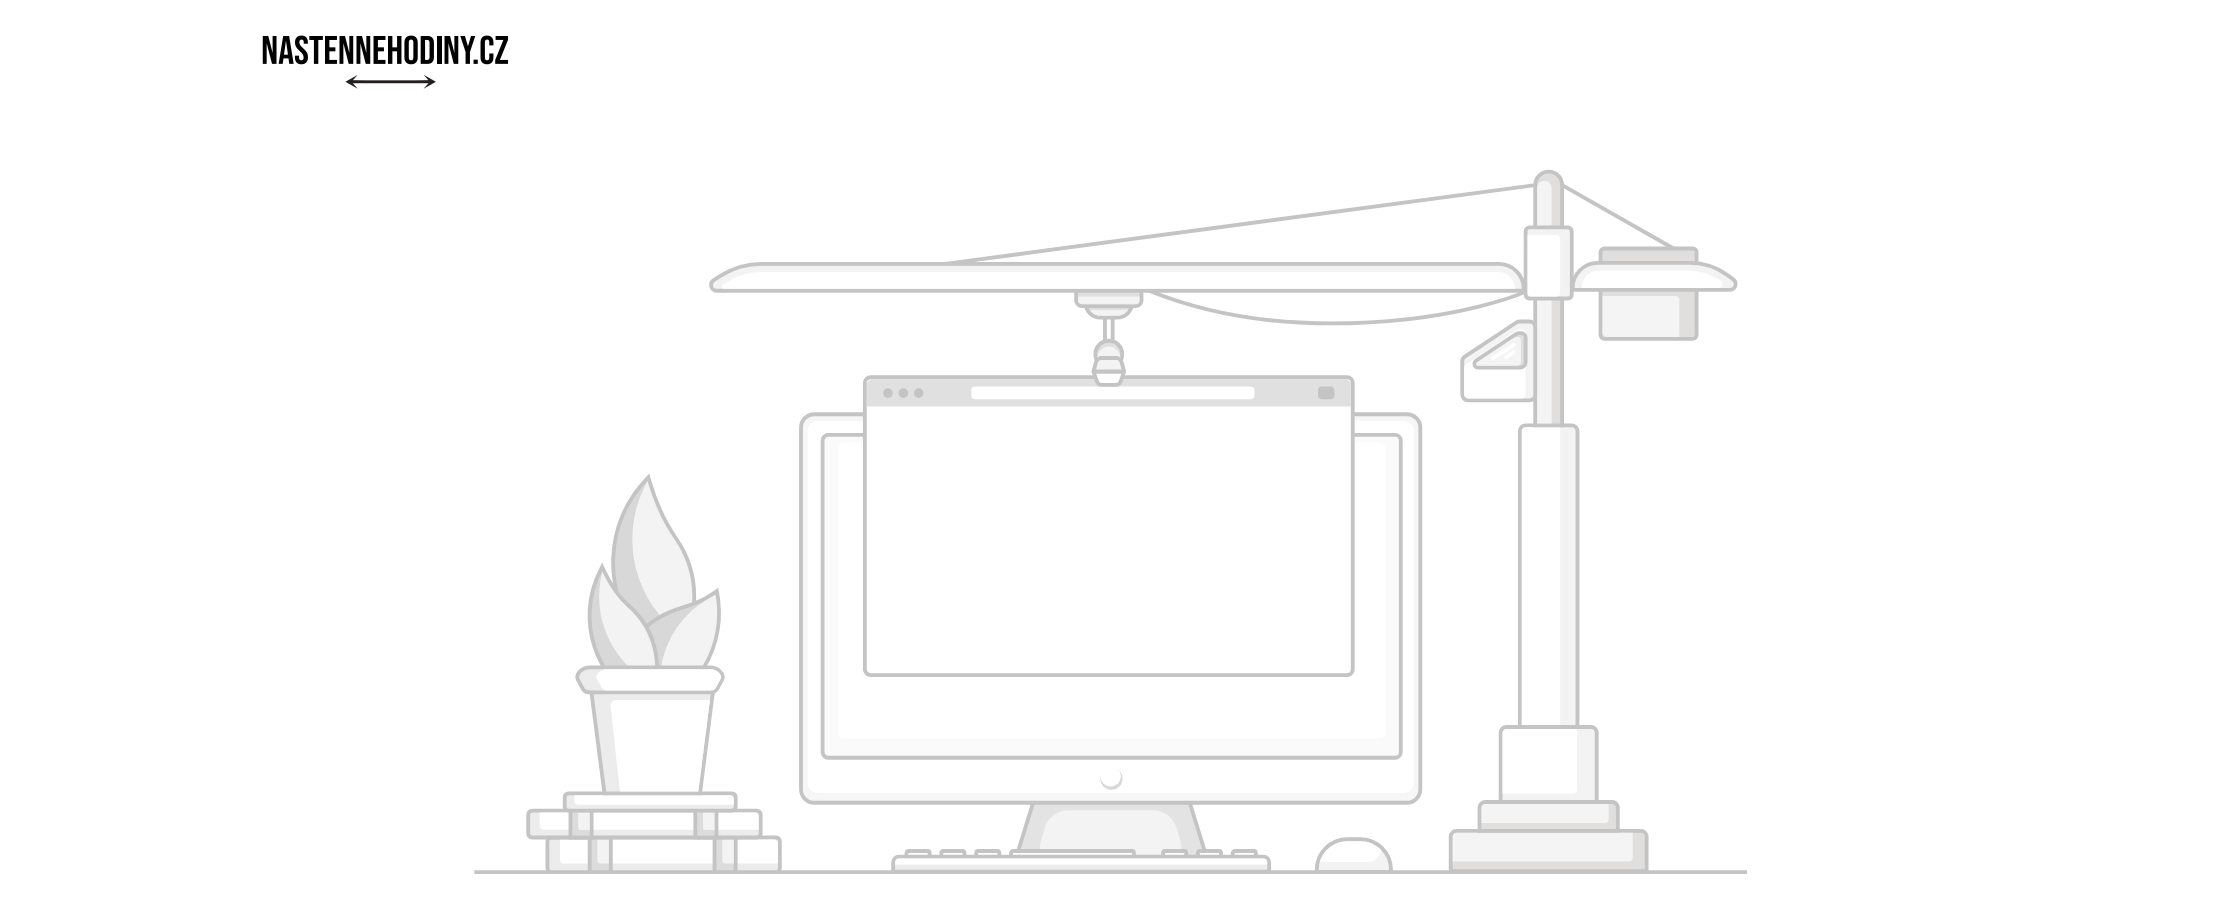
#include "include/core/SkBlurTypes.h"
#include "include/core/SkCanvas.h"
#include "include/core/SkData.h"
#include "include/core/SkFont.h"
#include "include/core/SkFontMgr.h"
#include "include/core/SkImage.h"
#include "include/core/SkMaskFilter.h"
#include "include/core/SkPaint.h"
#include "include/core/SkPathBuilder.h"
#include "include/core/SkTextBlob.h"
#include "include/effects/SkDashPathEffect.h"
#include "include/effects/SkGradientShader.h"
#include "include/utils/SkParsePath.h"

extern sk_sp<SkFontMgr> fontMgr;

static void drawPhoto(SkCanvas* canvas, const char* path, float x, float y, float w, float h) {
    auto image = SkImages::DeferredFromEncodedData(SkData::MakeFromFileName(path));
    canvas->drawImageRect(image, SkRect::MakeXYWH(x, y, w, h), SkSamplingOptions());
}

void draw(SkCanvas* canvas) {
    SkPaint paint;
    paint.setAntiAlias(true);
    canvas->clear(0xFFFFFFFF);
    drawPhoto(canvas, "assets/img1.png", 262, 35, 247, 54);
    drawPhoto(canvas, "assets/img2.png", 474, 169, 1273, 705);
}
